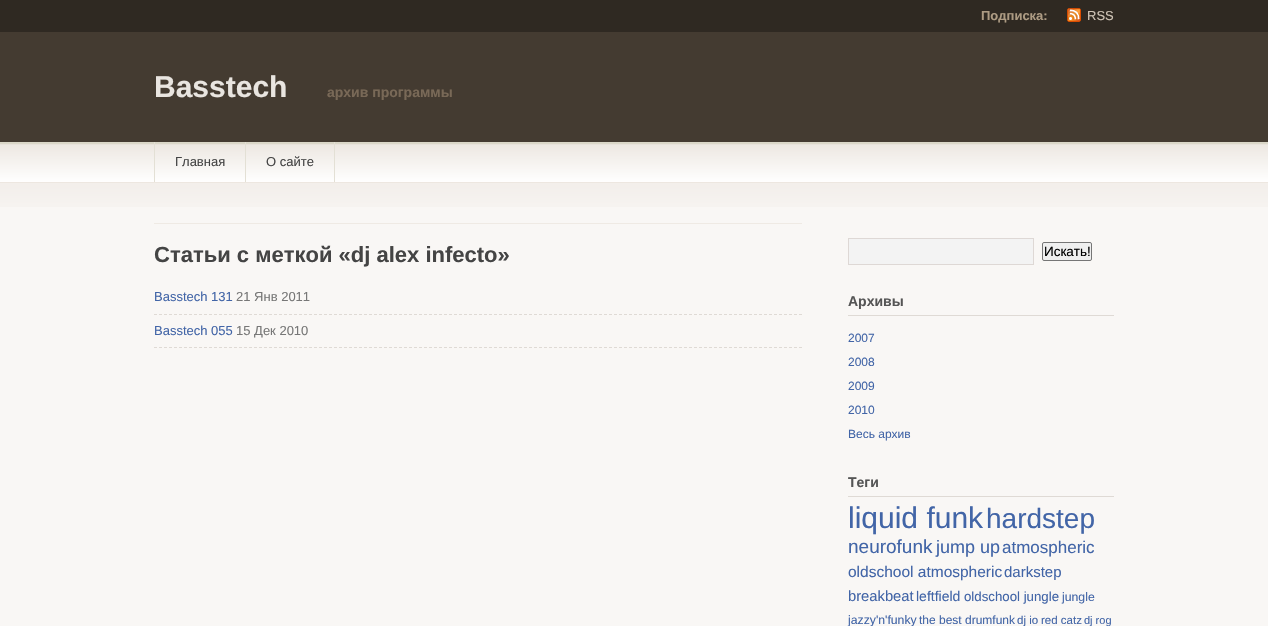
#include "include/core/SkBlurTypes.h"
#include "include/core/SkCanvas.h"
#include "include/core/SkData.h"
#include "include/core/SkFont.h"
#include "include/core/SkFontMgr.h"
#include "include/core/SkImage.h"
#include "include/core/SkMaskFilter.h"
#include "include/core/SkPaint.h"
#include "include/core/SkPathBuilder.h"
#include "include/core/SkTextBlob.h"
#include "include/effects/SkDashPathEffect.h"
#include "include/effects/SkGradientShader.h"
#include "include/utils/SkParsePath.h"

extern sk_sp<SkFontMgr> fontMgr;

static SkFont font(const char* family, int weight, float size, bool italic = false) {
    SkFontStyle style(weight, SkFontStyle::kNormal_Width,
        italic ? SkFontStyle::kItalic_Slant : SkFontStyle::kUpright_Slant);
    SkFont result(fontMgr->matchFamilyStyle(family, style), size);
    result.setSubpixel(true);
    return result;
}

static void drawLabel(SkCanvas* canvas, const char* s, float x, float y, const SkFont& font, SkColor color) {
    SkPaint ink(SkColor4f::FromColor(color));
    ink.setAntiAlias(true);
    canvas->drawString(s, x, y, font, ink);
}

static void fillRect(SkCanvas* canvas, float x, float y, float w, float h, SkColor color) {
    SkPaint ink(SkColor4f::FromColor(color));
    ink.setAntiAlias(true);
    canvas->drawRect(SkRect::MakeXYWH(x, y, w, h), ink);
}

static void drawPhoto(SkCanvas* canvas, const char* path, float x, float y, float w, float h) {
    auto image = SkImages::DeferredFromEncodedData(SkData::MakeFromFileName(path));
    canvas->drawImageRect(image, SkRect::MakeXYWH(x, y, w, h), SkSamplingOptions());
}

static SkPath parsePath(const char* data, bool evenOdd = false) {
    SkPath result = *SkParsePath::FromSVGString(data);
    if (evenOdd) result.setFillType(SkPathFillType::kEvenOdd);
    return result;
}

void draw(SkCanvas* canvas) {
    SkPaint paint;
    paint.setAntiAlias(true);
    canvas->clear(0xFFF9F7F5);
    fillRect(canvas, 0, 32, 1268, 110, 0xFF443B31);
    drawPhoto(canvas, "assets/img1.png", 0, 142, 1268, 40);
    fillRect(canvas, 0, 182, 1268, 1, 0xFFEDE7E0);
    fillRect(canvas, 0, 0, 1268, 32, 0xFF2F2922);
    SkFont font1 = font("Liberation Sans", 700, 13);
    drawLabel(canvas, "Подписка:", 981, 20, font1, 0xFFAD9B83);
    drawPhoto(canvas, "assets/img2.png", 1067, 8, 14, 14);
    SkFont font2 = font("Liberation Sans", 400, 13);
    drawLabel(canvas, "RSS", 1087, 20, font2, 0xFFCFC4B6);
    SkFont font3 = font("Liberation Sans", 700, 30);
    drawLabel(canvas, "Basstech", 154, 97, font3, 0xFFE9E5E0);
    SkFont font4 = font("Liberation Sans", 700, 14);
    drawLabel(canvas, "архив программы", 327, 97, font4, 0xFF796957);
    fillRect(canvas, 154, 142, 1, 40, 0xFFE3E0D5);
    fillRect(canvas, 245, 142, 1, 40, 0xFFE3E0D5);
    drawLabel(canvas, "Главная", 175, 166, font2, 0xFF444444);
    fillRect(canvas, 334, 142, 1, 40, 0xFFE3E0D5);
    drawLabel(canvas, "О сайте", 266, 166, font2, 0xFF444444);
    drawPhoto(canvas, "assets/img3.png", 0, 183, 1268, 24);
    fillRect(canvas, 154, 223, 648, 1, 0xFFEFEAE4);
    SkFont font5 = font("Liberation Sans", 700, 22);
    drawLabel(canvas, "Статьи с меткой «dj alex infecto»", 154, 262, font5, 0xFF444444);
    paint.setStroke(true);
    paint.setStrokeWidth(1);
    paint.setColor(0xFFDFDAD5);
    paint.setPathEffect(SkDashPathEffect::Make({{3, 2}}, 0));
    canvas->drawPath(parsePath("M154 314.5H802"), paint);
    paint.setPathEffect(nullptr);
    drawLabel(canvas, "Basstech 131", 154, 301, font2, 0xFF4265A7);
    drawLabel(canvas, "21 Янв 2011", 236, 301, font2, 0xFF777777);
    paint.setPathEffect(SkDashPathEffect::Make({{3, 2}}, 0));
    canvas->drawPath(parsePath("M154 347.5H802"), paint);
    paint.setPathEffect(nullptr);
    drawLabel(canvas, "Basstech 055", 154, 335, font2, 0xFF4265A7);
    drawLabel(canvas, "15 Дек 2010", 236, 335, font2, 0xFF777777);
    paint.setStroke(false);
    paint.setColor(0xFFF3F3F3);
    canvas->drawRect(SkRect::MakeXYWH(848.5f, 238.5f, 185, 26), paint);
    paint.setStroke(true);
    paint.setColor(0xFFDED8D5);
    canvas->drawRect(SkRect::MakeXYWH(848.5f, 238.5f, 185, 26), paint);
    paint.setStroke(false);
    paint.setColor(0xFFEFEFEF);
    canvas->drawRoundRect(SkRect::MakeXYWH(1042.5f, 242.5f, 49, 18), 1.5f, 1.5f, paint);
    paint.setStroke(true);
    paint.setColor(0xFF767676);
    canvas->drawRoundRect(SkRect::MakeXYWH(1042.5f, 242.5f, 49, 18), 1.5f, 1.5f, paint);
    SkFont font6 = font("Liberation Sans", 400, 13.5f);
    drawLabel(canvas, "Искать!", 1044, 256, font6, 0xFF000000);
    fillRect(canvas, 848, 315, 266, 1, 0xFFDFDAD5);
    drawLabel(canvas, "Архивы", 848, 306, font4, 0xFF555555);
    SkFont font7 = font("Liberation Sans", 400, 12);
    drawLabel(canvas, "2007", 848, 342, font7, 0xFF4265A7);
    drawLabel(canvas, "2008", 848, 366, font7, 0xFF4265A7);
    drawLabel(canvas, "2009", 848, 390, font7, 0xFF4265A7);
    drawLabel(canvas, "2010", 848, 414, font7, 0xFF4265A7);
    drawLabel(canvas, "Весь архив", 848, 438, font7, 0xFF4265A7);
    fillRect(canvas, 848, 496, 266, 1, 0xFFDFDAD5);
    drawLabel(canvas, "Теги", 848, 487, font4, 0xFF555555);
    SkFont font8 = font("Liberation Sans", 400, 30);
    drawLabel(canvas, "liquid funk", 848, 528, font8, 0xFF4265A7);
    SkFont font9 = font("Liberation Sans", 400, 28);
    drawLabel(canvas, "hardstep", 986, 528, font9, 0xFF4265A7);
    SkFont font10 = font("Liberation Sans", 400, 19);
    drawLabel(canvas, "neurofunk", 848, 553, font10, 0xFF4265A7);
    SkFont font11 = font("Liberation Sans", 400, 18);
    drawLabel(canvas, "jump up", 936, 553, font11, 0xFF4265A7);
    SkFont font12 = font("Liberation Sans", 400, 17);
    drawLabel(canvas, "atmospheric", 1002, 553, font12, 0xFF4265A7);
    SkFont font13 = font("Liberation Sans", 400, 15.5f);
    drawLabel(canvas, "oldschool atmospheric", 848, 577, font13, 0xFF4265A7);
    SkFont font14 = font("Liberation Sans", 400, 15);
    drawLabel(canvas, "darkstep", 1004, 577, font14, 0xFF4265A7);
    SkFont font15 = font("Liberation Sans", 400, 14.75f);
    drawLabel(canvas, "breakbeat", 848, 601, font15, 0xFF4265A7);
    SkFont font16 = font("Liberation Sans", 400, 14);
    drawLabel(canvas, "leftfield", 916, 601, font16, 0xFF4265A7);
    SkFont font17 = font("Liberation Sans", 400, 13.25f);
    drawLabel(canvas, "oldschool jungle", 964, 601, font17, 0xFF4265A7);
    SkFont font18 = font("Liberation Sans", 400, 12.25f);
    drawLabel(canvas, "jungle", 1062, 601, font18, 0xFF4265A7);
    drawLabel(canvas, "jazzy'n'funky", 848, 624, font18, 0xFF4265A7);
    drawLabel(canvas, "the best", 919, 624, font7, 0xFF4265A7);
    drawLabel(canvas, "drumfunk", 965, 624, font7, 0xFF4265A7);
    SkFont font19 = font("Liberation Sans", 400, 11.5f);
    drawLabel(canvas, "dj io", 1017, 624, font19, 0xFF4265A7);
    drawLabel(canvas, "red catz", 1041, 624, font19, 0xFF4265A7);
    SkFont font20 = font("Liberation Sans", 400, 11);
    drawLabel(canvas, "dj rog", 1084, 624, font20, 0xFF4265A7);
}
